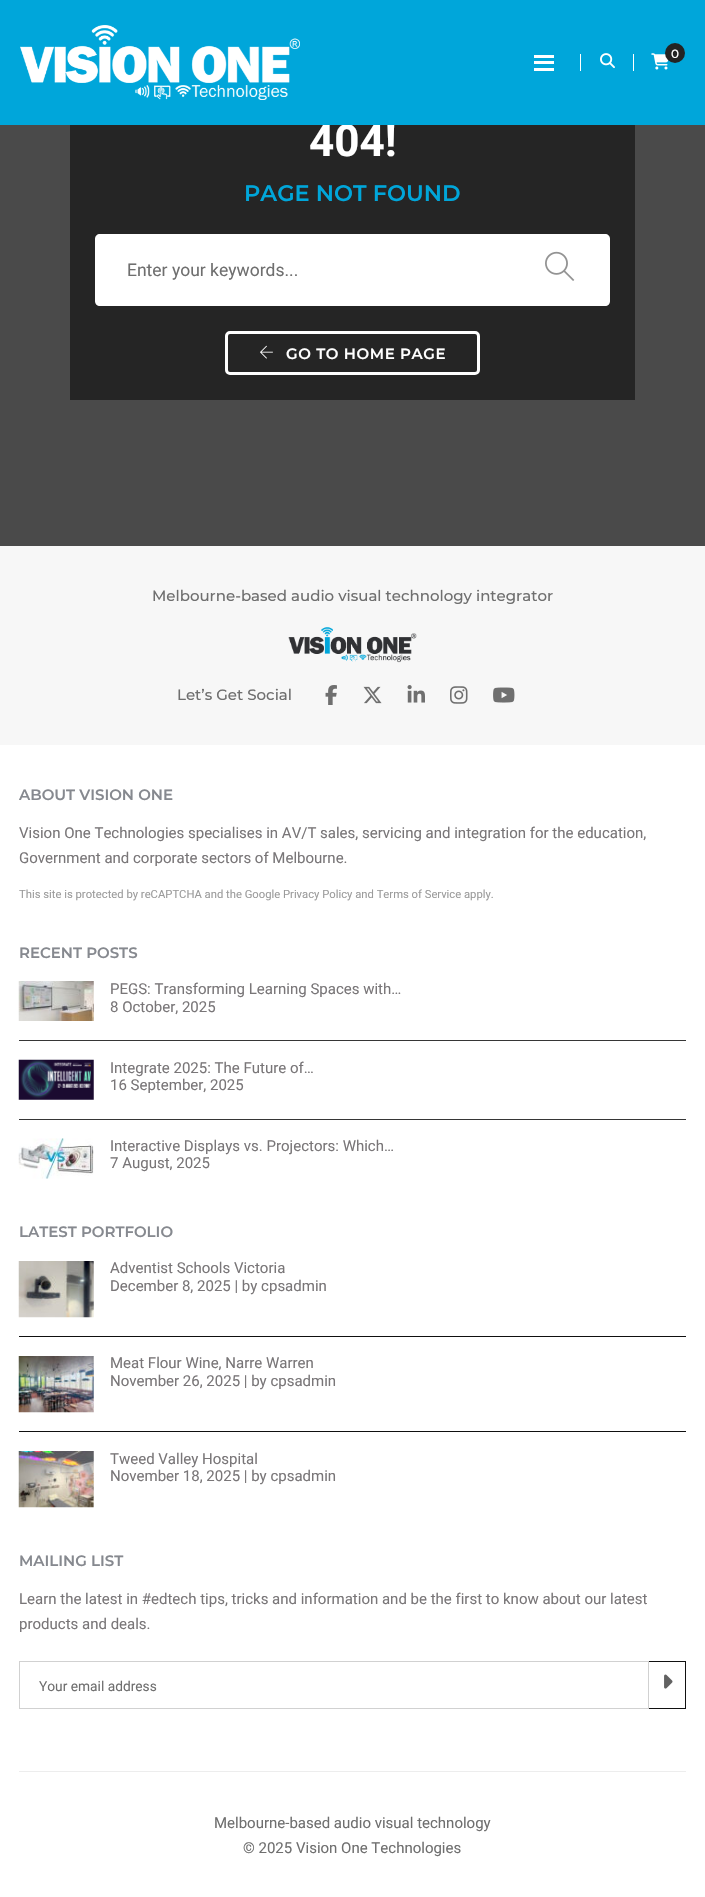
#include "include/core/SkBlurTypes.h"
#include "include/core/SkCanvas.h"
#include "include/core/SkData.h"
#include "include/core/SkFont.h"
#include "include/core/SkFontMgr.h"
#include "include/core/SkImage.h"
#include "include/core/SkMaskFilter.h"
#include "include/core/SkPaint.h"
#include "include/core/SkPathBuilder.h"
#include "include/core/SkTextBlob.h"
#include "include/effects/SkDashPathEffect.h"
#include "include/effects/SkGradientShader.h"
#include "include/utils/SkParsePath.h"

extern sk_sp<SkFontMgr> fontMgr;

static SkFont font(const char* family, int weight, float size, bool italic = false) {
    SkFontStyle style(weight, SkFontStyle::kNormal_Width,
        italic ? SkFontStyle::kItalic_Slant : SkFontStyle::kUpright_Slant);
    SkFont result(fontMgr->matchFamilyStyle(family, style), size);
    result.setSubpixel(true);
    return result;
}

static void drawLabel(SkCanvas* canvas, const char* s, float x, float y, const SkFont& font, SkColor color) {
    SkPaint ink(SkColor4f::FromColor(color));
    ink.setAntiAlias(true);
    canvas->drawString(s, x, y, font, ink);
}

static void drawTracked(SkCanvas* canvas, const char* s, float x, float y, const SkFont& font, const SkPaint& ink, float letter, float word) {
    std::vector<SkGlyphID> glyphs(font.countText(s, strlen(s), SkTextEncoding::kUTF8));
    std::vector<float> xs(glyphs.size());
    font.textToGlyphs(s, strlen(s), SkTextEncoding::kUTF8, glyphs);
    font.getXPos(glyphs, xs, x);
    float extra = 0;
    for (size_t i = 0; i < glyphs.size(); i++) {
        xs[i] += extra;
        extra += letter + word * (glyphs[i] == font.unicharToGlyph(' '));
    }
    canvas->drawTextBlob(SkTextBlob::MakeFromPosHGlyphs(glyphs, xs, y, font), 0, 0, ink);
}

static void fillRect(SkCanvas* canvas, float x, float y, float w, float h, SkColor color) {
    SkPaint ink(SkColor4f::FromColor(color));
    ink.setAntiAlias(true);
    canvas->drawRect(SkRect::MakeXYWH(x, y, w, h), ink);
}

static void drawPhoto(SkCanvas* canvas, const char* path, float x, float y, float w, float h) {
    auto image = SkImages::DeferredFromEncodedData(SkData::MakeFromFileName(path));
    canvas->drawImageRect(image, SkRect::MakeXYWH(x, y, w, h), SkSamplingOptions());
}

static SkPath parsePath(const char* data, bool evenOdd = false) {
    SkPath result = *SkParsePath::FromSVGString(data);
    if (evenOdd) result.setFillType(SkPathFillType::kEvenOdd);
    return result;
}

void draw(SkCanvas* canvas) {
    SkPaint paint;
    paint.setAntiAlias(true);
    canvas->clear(0xFFF7F7F7);
    fillRect(canvas, 0, 125, 705, 421, 0xFF4A4A4A);
    fillRect(canvas, 70, 125, 565, 275, 0xFF252525);
    SkFont font1 = font("Roboto", 700, 44);
    drawLabel(canvas, "404!", 309, 156, font1, 0xFFFFFFFF);
    fillRect(canvas, 0, 0, 705, 125, 0xFF00A6DA);
    drawPhoto(canvas, "assets/img1.png", 20, 25, 280, 75);
    fillRect(canvas, 534, 55, 20, 3, 0xFFFFFFFF);
    fillRect(canvas, 534, 61, 20, 3, 0xFFFFFFFF);
    fillRect(canvas, 534, 68, 20, 3, 0xFFFFFFFF);
    fillRect(canvas, 580, 54, 1, 17, 0xFFFFFFFF);
    drawPhoto(canvas, "assets/img2.png", 600, 53, 15, 16);
    fillRect(canvas, 633, 54, 1, 17, 0xFFFFFFFF);
    drawPhoto(canvas, "assets/img3.png", 651, 53, 18, 17);
    paint.setColor(0xFF232323);
    canvas->drawCircle(675, 53, 10, paint);
    SkFont font2 = font("Montserrat", 500, 12);
    drawLabel(canvas, "0", 671, 58, font2, 0xFFFFFFFF);
    SkFont font3 = font("Montserrat", 600, 22.5f);
    drawLabel(canvas, "PAGE NOT FOUND", 244, 201, font3, 0xFF00A6DA);
    paint.setColor(0xFFFFFFFF);
    canvas->drawPath(parsePath("M100 234H513V306H100C97 306 95 304 95 301V239C95 236 97 234 100 234Z"), paint);
    SkFont font4 = font("Roboto", 400, 17.5f);
    drawLabel(canvas, "Enter your keywords...", 127, 276, font4, 0xFF6F6F6F);
    canvas->drawPath(parsePath("M511 234H605C608 234 610 236 610 239V301C610 304 608 306 605 306H511Z"), paint);
    drawPhoto(canvas, "assets/img4.png", 545, 251, 30, 30);
    paint.setStroke(true);
    paint.setStrokeWidth(3);
    canvas->drawRoundRect(SkRect::MakeXYWH(226.5f, 332.5f, 252, 41), 3.5f, 3.5f, paint);
    drawPhoto(canvas, "assets/img5.png", 260, 345, 13, 14);
    SkFont font5 = font("Montserrat", 600, 15);
    paint.setStroke(false);
    drawTracked(canvas, "GO TO HOME PAGE", 286, 359, font5, paint, 0.6f, 0);
    SkFont font6 = font("Montserrat", 500, 15);
    drawLabel(canvas, "Melbourne-based audio visual technology integrator", 152, 601, font6, 0xFF6F6F6F);
    drawPhoto(canvas, "assets/img6.png", 288, 627, 129, 36);
    drawLabel(canvas, "Let’s Get Social", 177, 700, font6, 0xFF6F6F6F);
    drawPhoto(canvas, "assets/img7.png", 325, 685, 12, 20);
    drawPhoto(canvas, "assets/img8.png", 363, 686, 19, 18);
    drawPhoto(canvas, "assets/img9.png", 407, 685, 18, 18);
    drawPhoto(canvas, "assets/img10.png", 450, 686, 18, 18);
    drawPhoto(canvas, "assets/img11.png", 493, 687, 22, 16);
    fillRect(canvas, 0, 745, 705, 1152, 0xFFFFFFFF);
    drawLabel(canvas, "ABOUT VISION ONE", 19, 800, font5, 0xFF86898F);
    SkFont font7 = font("Roboto", 400, 15);
    drawLabel(canvas, "Vision One Technologies specialises in AV/T sales, servicing and integration for the education,", 19, 838, font7, 0xFF797678);
    drawLabel(canvas, "Government and corporate sectors of Melbourne.", 19, 863, font7, 0xFF797678);
    SkFont font8 = font("Roboto", 400, 11.25f);
    drawLabel(canvas, "This site is protected by reCAPTCHA and the Google Privacy Policy and Terms of Service apply.", 19, 898, font8, 0xFF9B9B9B);
    drawLabel(canvas, "RECENT POSTS", 19, 958, font5, 0xFF86898F);
    fillRect(canvas, 19, 1040, 667, 1, 0xFF363636);
    drawPhoto(canvas, "assets/img12.png", 18, 981, 76, 40);
    drawLabel(canvas, "PEGS: Transforming Learning Spaces with…", 110, 994, font7, 0xFF797678);
    drawLabel(canvas, "8 October, 2025", 110, 1012, font7, 0xFF797678);
    fillRect(canvas, 19, 1119, 667, 1, 0xFF363636);
    drawPhoto(canvas, "assets/img13.png", 18, 1059, 76, 41);
    drawLabel(canvas, "Integrate 2025: The Future of…", 110, 1073, font7, 0xFF797678);
    drawLabel(canvas, "16 September, 2025", 110, 1090, font7, 0xFF797678);
    drawPhoto(canvas, "assets/img14.png", 18, 1138, 76, 41);
    drawLabel(canvas, "Interactive Displays vs. Projectors: Which…", 110, 1151, font7, 0xFF797678);
    drawLabel(canvas, "7 August, 2025", 110, 1168, font7, 0xFF797678);
    drawLabel(canvas, "LATEST PORTFOLIO", 19, 1237, font5, 0xFF86898F);
    fillRect(canvas, 19, 1336, 667, 1, 0xFF0F0F0F);
    drawPhoto(canvas, "assets/img15.png", 18, 1261, 76, 57);
    drawLabel(canvas, "Adventist Schools Victoria", 110, 1273, font7, 0xFF797678);
    drawLabel(canvas, "December 8, 2025 | by cpsadmin", 110, 1291, font7, 0xFF797678);
    fillRect(canvas, 19, 1431, 667, 1, 0xFF0F0F0F);
    drawPhoto(canvas, "assets/img16.png", 18, 1356, 76, 57);
    drawLabel(canvas, "Meat Flour Wine, Narre Warren", 110, 1368, font7, 0xFF797678);
    drawLabel(canvas, "November 26, 2025 | by cpsadmin", 110, 1386, font7, 0xFF797678);
    drawPhoto(canvas, "assets/img17.png", 18, 1451, 76, 57);
    drawLabel(canvas, "Tweed Valley Hospital", 110, 1464, font7, 0xFF797678);
    drawLabel(canvas, "November 18, 2025 | by cpsadmin", 110, 1481, font7, 0xFF797678);
    drawLabel(canvas, "MAILING LIST", 19, 1566, font5, 0xFF86898F);
    drawLabel(canvas, "Learn the latest in #edtech tips, tricks and information and be the first to know about our latest", 19, 1604, font7, 0xFF797678);
    drawLabel(canvas, "products and deals.", 19, 1629, font7, 0xFF797678);
    paint.setStroke(true);
    paint.setStrokeWidth(1);
    paint.setColor(0xFFD1D1D1);
    canvas->drawRect(SkRect::MakeXYWH(19.5f, 1661.5f, 629, 47), paint);
    SkFont font9 = font("Roboto", 400, 13.75f);
    drawLabel(canvas, "Your email address", 39, 1691, font9, 0xFF6F6F6F);
    fillRect(canvas, 649, 1661, 37, 1, 0xFF111111);
    fillRect(canvas, 685, 1661, 1, 48, 0xFF111111);
    fillRect(canvas, 649, 1708, 37, 1, 0xFF111111);
    drawPhoto(canvas, "assets/img18.png", 664, 1674, 9, 15);
    fillRect(canvas, 19, 1771, 667, 1, 0xFFEDEDED);
    drawLabel(canvas, "Melbourne-based audio visual technology", 214, 1828, font7, 0xFF6F6F6F);
    drawLabel(canvas, "© 2025 Vision One Technologies", 243, 1853, font7, 0xFF6F6F6F);
}
